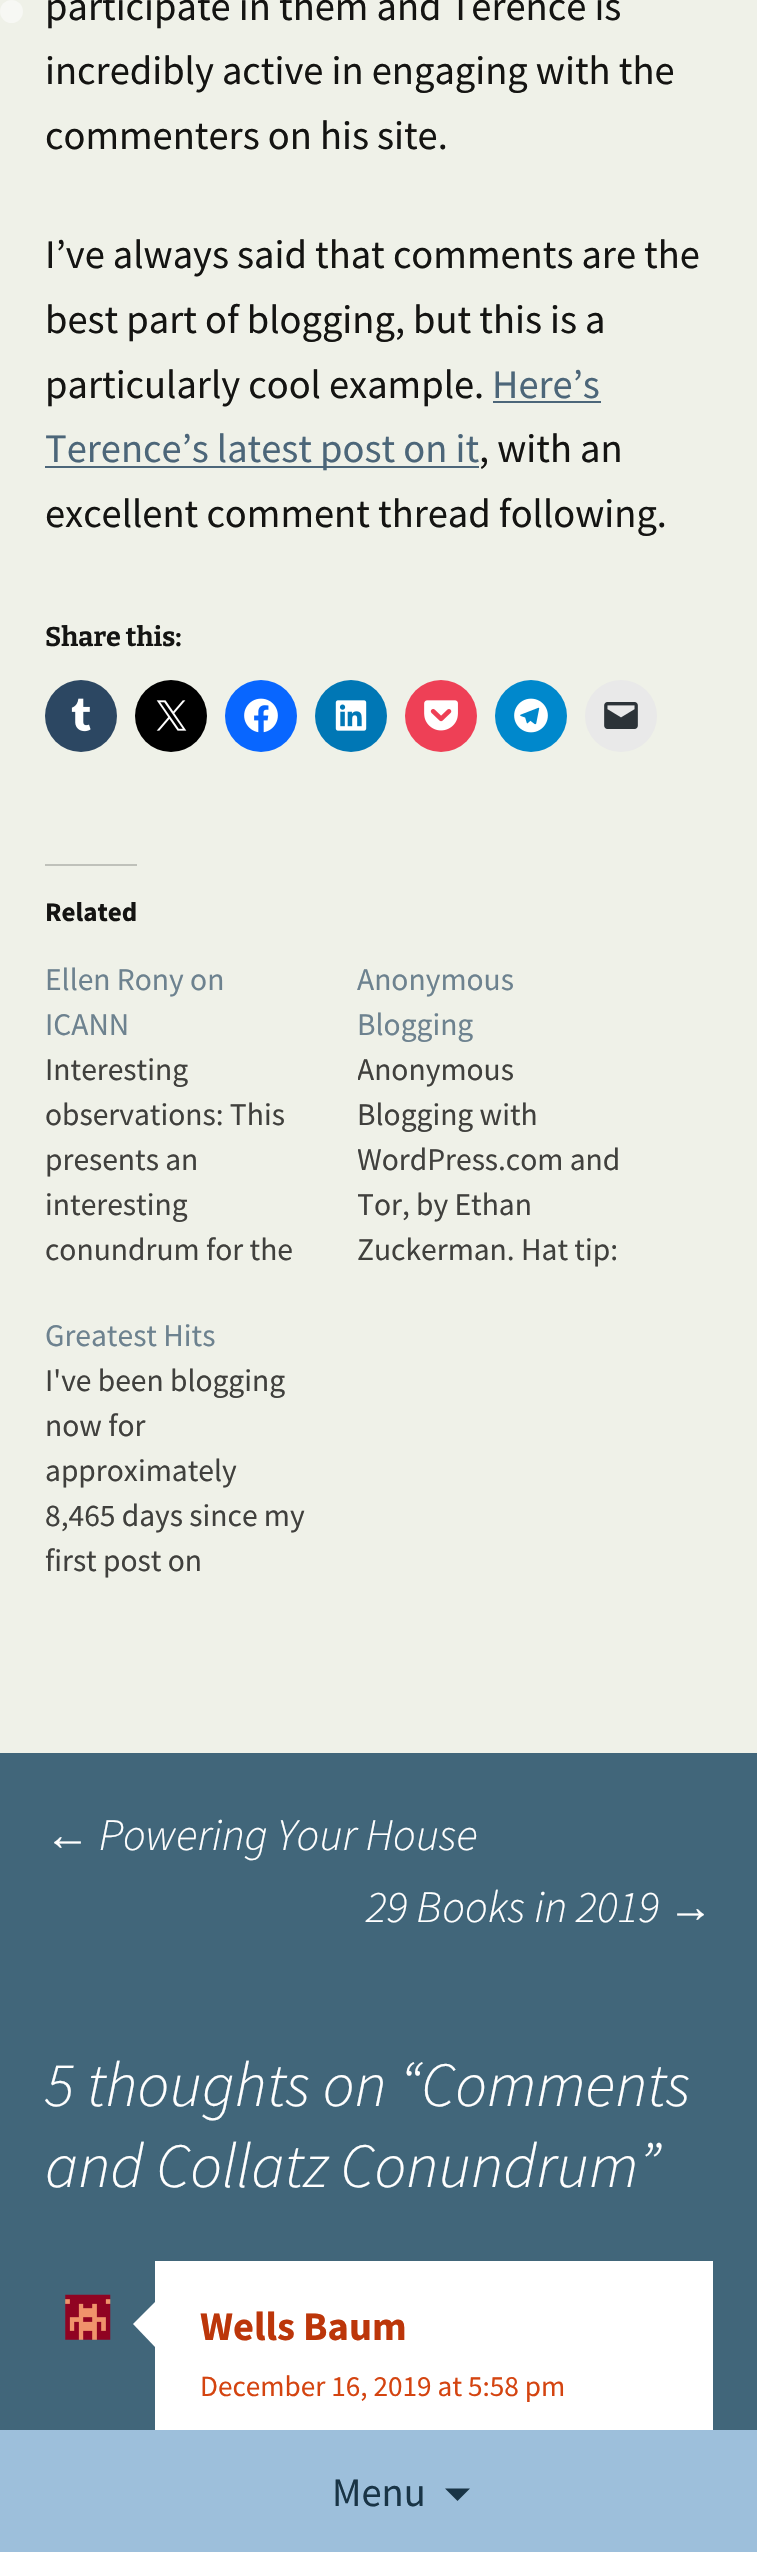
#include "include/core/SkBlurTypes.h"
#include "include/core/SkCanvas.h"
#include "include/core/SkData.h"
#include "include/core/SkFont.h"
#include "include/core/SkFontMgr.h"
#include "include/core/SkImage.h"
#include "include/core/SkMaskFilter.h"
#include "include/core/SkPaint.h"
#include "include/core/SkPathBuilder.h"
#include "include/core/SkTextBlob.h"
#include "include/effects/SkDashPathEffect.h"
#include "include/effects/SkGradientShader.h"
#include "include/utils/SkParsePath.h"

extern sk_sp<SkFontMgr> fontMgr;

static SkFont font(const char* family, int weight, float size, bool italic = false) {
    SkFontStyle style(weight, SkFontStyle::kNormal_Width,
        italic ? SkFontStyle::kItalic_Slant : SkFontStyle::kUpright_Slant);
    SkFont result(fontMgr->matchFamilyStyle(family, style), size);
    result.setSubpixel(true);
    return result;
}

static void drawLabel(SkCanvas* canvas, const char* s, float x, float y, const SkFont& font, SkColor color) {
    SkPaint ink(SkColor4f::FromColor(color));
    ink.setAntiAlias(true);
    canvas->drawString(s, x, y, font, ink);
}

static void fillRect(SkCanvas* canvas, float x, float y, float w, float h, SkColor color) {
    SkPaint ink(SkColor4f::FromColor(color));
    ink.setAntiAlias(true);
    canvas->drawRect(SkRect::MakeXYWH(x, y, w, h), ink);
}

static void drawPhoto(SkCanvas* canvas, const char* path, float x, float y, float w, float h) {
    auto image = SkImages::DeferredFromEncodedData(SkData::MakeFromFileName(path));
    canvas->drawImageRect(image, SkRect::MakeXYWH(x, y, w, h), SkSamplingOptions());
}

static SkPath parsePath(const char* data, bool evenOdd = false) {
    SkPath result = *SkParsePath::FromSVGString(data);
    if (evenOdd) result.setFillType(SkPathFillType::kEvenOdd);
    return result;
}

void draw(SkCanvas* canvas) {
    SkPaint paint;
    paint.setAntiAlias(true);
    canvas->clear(0xFF41667A);
    fillRect(canvas, 0, 0, 757, 1753, 0xFFEFF1E8);
    paint.setColor(0xFFF7F8F4);
    canvas->drawCircle(11.5f, 11.5f, 11.5f, paint);
    SkFont font1 = font("Source Sans Pro", 400, 40.5f);
    drawLabel(canvas, "participate in them and Terence is", 45, 20, font1, 0xFF141412);
    drawLabel(canvas, "incredibly active in engaging with the", 45, 84, font1, 0xFF141412);
    drawLabel(canvas, "commenters on his site.", 45, 149, font1, 0xFF141412);
    drawLabel(canvas, "I’ve always said that comments are the", 45, 268, font1, 0xFF141412);
    drawLabel(canvas, "best part of blogging, but this is a", 45, 333, font1, 0xFF141412);
    drawLabel(canvas, "particularly cool example.", 45, 398, font1, 0xFF141412);
    drawLabel(canvas, "Here’s", 492, 398, font1, 0xFF4C6679);
    fillRect(canvas, 493, 401, 108, 2, 0xFF4C6679);
    fillRect(canvas, 45, 466, 434, 2, 0xFF4C6679);
    drawLabel(canvas, "Terence’s latest post on it", 45, 462, font1, 0xFF4C6679);
    drawLabel(canvas, ", with an", 479, 462, font1, 0xFF141412);
    drawLabel(canvas, "excellent comment thread following.", 45, 527, font1, 0xFF141412);
    SkFont font2 = font("Bitter", 100, 27);
    drawLabel(canvas, "Share this:", 45, 646, font2, 0xFF141412);
    paint.setColor(0xFF2C4762);
    canvas->drawCircle(81, 716, 36, paint);
    drawPhoto(canvas, "assets/img1.png", 71, 698, 20, 34);
    paint.setColor(0xFF000000);
    canvas->drawCircle(171, 716, 36, paint);
    drawPhoto(canvas, "assets/img2.png", 156, 700, 31, 31);
    paint.setColor(0xFF0866FF);
    canvas->drawCircle(261, 716, 36, paint);
    drawPhoto(canvas, "assets/img3.png", 244, 698, 34, 35);
    paint.setColor(0xFF0077B5);
    canvas->drawCircle(351, 716, 36, paint);
    drawPhoto(canvas, "assets/img4.png", 335, 700, 32, 31);
    paint.setColor(0xFFEE4056);
    canvas->drawCircle(441, 716, 36, paint);
    drawPhoto(canvas, "assets/img5.png", 424, 700, 34, 31);
    paint.setColor(0xFF0088CC);
    canvas->drawCircle(531, 716, 36, paint);
    drawPhoto(canvas, "assets/img6.png", 514, 698, 34, 35);
    paint.setColor(0xFFE9E9E9);
    canvas->drawCircle(621, 716, 36, paint);
    drawPhoto(canvas, "assets/img7.png", 604, 702, 34, 27);
    fillRect(canvas, 45, 864, 92, 2, 0xFFBFC1BA);
    SkFont font3 = font("Source Sans Pro", 700, 27);
    drawLabel(canvas, "Related", 45, 921, font3, 0xFF141412);
    SkFont font4 = font("Source Sans Pro", 400, 31.5f);
    drawLabel(canvas, "Ellen Rony on", 45, 990, font4, 0xFF6D828F);
    drawLabel(canvas, "ICANN", 45, 1035, font4, 0xFF6D828F);
    drawLabel(canvas, "Interesting", 45, 1080, font4, 0xFF40403D);
    drawLabel(canvas, "observations: This", 45, 1125, font4, 0xFF40403D);
    drawLabel(canvas, "presents an", 45, 1170, font4, 0xFF40403D);
    drawLabel(canvas, "interesting", 45, 1215, font4, 0xFF40403D);
    drawLabel(canvas, "conundrum for the", 45, 1260, font4, 0xFF40403D);
    drawLabel(canvas, "Anonymous", 357, 990, font4, 0xFF6D828F);
    drawLabel(canvas, "Blogging", 357, 1035, font4, 0xFF6D828F);
    canvas->save();
    canvas->clipRect(SkRect::MakeXYWH(358, 1046, 265, 225));
    drawLabel(canvas, "Anonymous", 357, 1080, font4, 0xFF40403D);
    canvas->restore();
    drawLabel(canvas, "Blogging with", 357, 1125, font4, 0xFF40403D);
    canvas->save();
    canvas->clipRect(SkRect::MakeXYWH(358, 1046, 265, 225));
    drawLabel(canvas, "WordPress.com and", 357, 1170, font4, 0xFF40403D);
    drawLabel(canvas, "Tor, by Ethan", 357, 1215, font4, 0xFF40403D);
    canvas->restore();
    drawLabel(canvas, "Zuckerman. Hat tip:", 357, 1260, font4, 0xFF40403D);
    drawLabel(canvas, "Greatest Hits", 45, 1346, font4, 0xFF6D828F);
    drawLabel(canvas, "I've been blogging", 45, 1391, font4, 0xFF40403D);
    drawLabel(canvas, "now for", 45, 1436, font4, 0xFF40403D);
    drawLabel(canvas, "approximately", 45, 1481, font4, 0xFF40403D);
    drawLabel(canvas, "8,465 days since my", 45, 1526, font4, 0xFF40403D);
    drawLabel(canvas, "first post on", 45, 1571, font4, 0xFF40403D);
    SkFont font5 = font("Liberation Sans", 400, 45, true);
    drawLabel(canvas, "←", 45, 1850, font5, 0xFFFFFFFF);
    SkFont font6 = font("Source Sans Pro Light", 300, 45, true);
    drawLabel(canvas, "Powering Your House", 99, 1850, font6, 0xFFFFFFFF);
    drawLabel(canvas, "29 Books in 2019", 366, 1922, font6, 0xFFFFFFFF);
    drawLabel(canvas, "→", 668, 1922, font5, 0xFFFFFFFF);
    SkFont font7 = font("Source Sans Pro Light", 300, 63, true);
    drawLabel(canvas, "5 thoughts on “Comments", 45, 2106, font7, 0xFFFFFFFF);
    drawLabel(canvas, "and Collatz Conundrum”", 45, 2187, font7, 0xFFFFFFFF);
    fillRect(canvas, 155, 2261, 558, 169, 0xFFFFFFFF);
    paint.setColor(0xFFFFFFFF);
    canvas->drawPath(parsePath("M155 2302V2347L133 2324Z"), paint);
    drawPhoto(canvas, "assets/img8.png", 65, 2294, 46, 46);
    SkFont font8 = font("Source Sans Pro", 700, 40.5f);
    drawLabel(canvas, "Wells Baum", 200, 2340, font8, 0xFFBC360A);
    SkFont font9 = font("Source Sans Pro", 400, 29.25f);
    drawLabel(canvas, "December 16, 2019 at 5:58 pm", 200, 2396, font9, 0xFFD44410);
    fillRect(canvas, 0, 2430, 757, 122, 0xFF9DBFDB);
    drawLabel(canvas, "Menu", 332, 2506, font1, 0xFF193446);
    paint.setColor(0xFF193446);
    canvas->drawPath(parsePath("M445 2488.5H470L457.5 2501Z"), paint);
}
